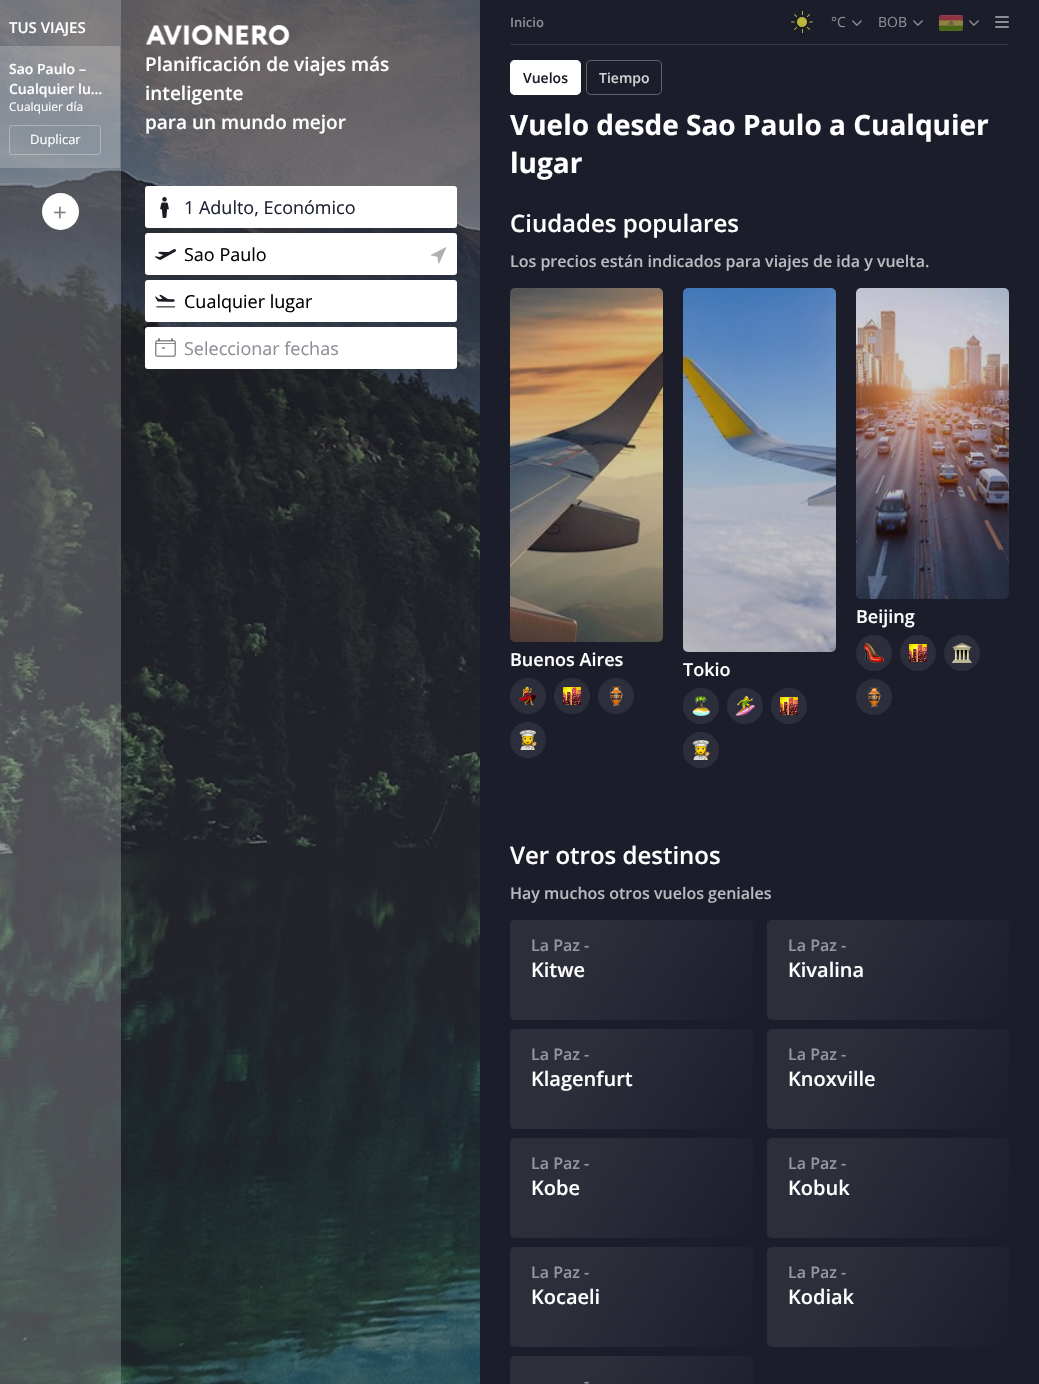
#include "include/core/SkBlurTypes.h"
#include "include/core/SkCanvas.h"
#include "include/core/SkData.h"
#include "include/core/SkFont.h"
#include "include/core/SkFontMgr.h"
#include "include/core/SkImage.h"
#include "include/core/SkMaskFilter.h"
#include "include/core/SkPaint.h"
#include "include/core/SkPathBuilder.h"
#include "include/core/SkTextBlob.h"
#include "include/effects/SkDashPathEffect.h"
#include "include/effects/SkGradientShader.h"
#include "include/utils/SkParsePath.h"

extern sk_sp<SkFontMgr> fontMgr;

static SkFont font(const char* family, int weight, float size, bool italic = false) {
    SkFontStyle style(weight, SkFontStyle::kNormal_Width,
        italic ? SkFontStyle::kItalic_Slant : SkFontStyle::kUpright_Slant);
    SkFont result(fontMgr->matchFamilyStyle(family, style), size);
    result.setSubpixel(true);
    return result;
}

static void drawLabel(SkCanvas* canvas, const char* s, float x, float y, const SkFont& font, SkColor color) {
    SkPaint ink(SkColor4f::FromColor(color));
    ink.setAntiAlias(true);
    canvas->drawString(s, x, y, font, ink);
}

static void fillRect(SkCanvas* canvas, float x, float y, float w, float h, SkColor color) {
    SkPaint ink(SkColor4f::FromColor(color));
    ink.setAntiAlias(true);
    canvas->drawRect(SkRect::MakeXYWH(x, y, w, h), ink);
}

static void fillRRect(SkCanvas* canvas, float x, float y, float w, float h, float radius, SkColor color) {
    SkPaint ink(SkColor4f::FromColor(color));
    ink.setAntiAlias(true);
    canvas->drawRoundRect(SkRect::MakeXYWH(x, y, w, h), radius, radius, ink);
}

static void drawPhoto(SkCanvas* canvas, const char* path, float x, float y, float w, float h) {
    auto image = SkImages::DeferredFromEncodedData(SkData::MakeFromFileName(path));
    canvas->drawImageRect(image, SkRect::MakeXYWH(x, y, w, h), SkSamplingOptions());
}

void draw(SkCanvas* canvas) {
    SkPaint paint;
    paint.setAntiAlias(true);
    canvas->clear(0xFF1B1D2B);
    drawPhoto(canvas, "assets/img1.png", 0, 0, 480, 1384);
    fillRect(canvas, 0, 0, 120, 1384, 0x33FFFFFF);
    SkFont font1 = font("Open Sans", 600, 15);
    drawLabel(canvas, "TUS VIAJES", 9, 33, font1, 0xFFFFFFFF);
    fillRect(canvas, 0, 46, 120, 122, 0x33FFFFFF);
    SkFont font2 = font("Open Sans", 600, 14);
    drawLabel(canvas, "Sao Paulo", 9, 74, font2, 0xFFFFFFFF);
    drawLabel(canvas, "–", 79, 74, font2, 0xFFFFFFFF);
    drawLabel(canvas, "Cualquier lu…", 9, 94, font2, 0xFFFFFFFF);
    SkFont font3 = font("Open Sans", 400, 12);
    drawLabel(canvas, "Cualquier día", 9, 111, font3, 0xFFFFFFFF);
    paint.setStroke(true);
    paint.setStrokeWidth(1);
    paint.setColor(0x4DFFFFFF);
    canvas->drawRoundRect(SkRect::MakeXYWH(9.5f, 125.5f, 91, 29), 2.5f, 2.5f, paint);
    SkFont font4 = font("Open Sans", 400, 13);
    drawLabel(canvas, "Duplicar", 30, 144, font4, 0xFFFFFFFF);
    paint.setStroke(false);
    paint.setColor(0xFFFFFFFF);
    canvas->drawCircle(60.5f, 211.5f, 18.5f, paint);
    SkFont font5 = font("Open Sans", 400, 24);
    drawLabel(canvas, "+", 53, 221, font5, 0xFF808080);
    fillRect(canvas, 120, 0, 1, 1384, 0x33FFFFFF);
    drawPhoto(canvas, "assets/img2.png", 145, 25, 145, 20);
    SkFont font6 = font("Open Sans", 600, 19);
    drawLabel(canvas, "Planificación de viajes más", 145, 71, font6, 0xFFFFFFFF);
    drawLabel(canvas, "inteligente", 145, 100, font6, 0xFFFFFFFF);
    drawLabel(canvas, "para un mundo mejor", 145, 129, font6, 0xFFFFFFFF);
    fillRRect(canvas, 145, 186, 312, 42, 3, 0xFFFFFFFF);
    drawPhoto(canvas, "assets/img3.png", 160, 197, 9, 21);
    SkFont font7 = font("Open Sans", 400, 18);
    drawLabel(canvas, "1 Adulto, Económico", 184, 214, font7, 0xFF1D2232);
    fillRRect(canvas, 145, 233, 312, 42, 3, 0xFFFFFFFF);
    drawPhoto(canvas, "assets/img4.png", 155, 249, 21, 11);
    drawLabel(canvas, "Sao Paulo", 184, 261, font7, 0xFF000000);
    drawPhoto(canvas, "assets/img5.png", 430, 247, 17, 17);
    fillRRect(canvas, 145, 280, 312, 42, 3, 0xFFFFFFFF);
    drawPhoto(canvas, "assets/img6.png", 155, 294, 20, 14);
    drawLabel(canvas, "Cualquier lugar", 184, 308, font7, 0xFF000000);
    fillRRect(canvas, 145, 327, 312, 42, 3, 0xFFFFFFFF);
    drawPhoto(canvas, "assets/img7.png", 155, 338, 21, 19);
    drawLabel(canvas, "Seleccionar fechas", 184, 355, font7, 0xFF8D8E95);
    fillRect(canvas, 510, 44, 499, 1, 0xFF323440);
    SkFont font8 = font("Open Sans", 600, 13);
    drawLabel(canvas, "Inicio", 510, 27, font8, 0xFF8D8E95);
    drawPhoto(canvas, "assets/img8.png", 791, 11, 22, 22);
    SkFont font9 = font("Open Sans", 400, 14);
    drawLabel(canvas, "°C", 831, 27, font9, 0xFF8D8E95);
    drawPhoto(canvas, "assets/img9.png", 852, 20, 10, 6);
    drawLabel(canvas, "BOB", 878, 27, font9, 0xFF8D8E95);
    drawPhoto(canvas, "assets/img9.png", 913, 20, 10, 6);
    drawPhoto(canvas, "assets/img10.png", 939, 15, 24, 16);
    drawPhoto(canvas, "assets/img9.png", 969, 20, 10, 6);
    fillRRect(canvas, 995, 16, 14, 2, 1, 0xFF8D8E95);
    fillRRect(canvas, 995, 21, 14, 2, 1, 0xFF8D8E95);
    fillRRect(canvas, 995, 26, 14, 2, 1, 0xFF8D8E95);
    fillRRect(canvas, 510, 60, 71, 35, 5, 0xFFFFFFFF);
    paint.setStroke(true);
    paint.setColor(0xCCFFFFFF);
    canvas->drawRoundRect(SkRect::MakeXYWH(510.5f, 60.5f, 70, 34), 4.5f, 4.5f, paint);
    drawLabel(canvas, "Vuelos", 523, 83, font2, 0xFF1B1D2B);
    paint.setColor(0xFF5F616B);
    canvas->drawRoundRect(SkRect::MakeXYWH(586.5f, 60.5f, 75, 34), 4.5f, 4.5f, paint);
    drawLabel(canvas, "Tiempo", 599, 83, font2, 0xFFD1D2D5);
    SkFont font10 = font("Open Sans", 700, 28);
    drawLabel(canvas, "Vuelo desde Sao Paulo a Cualquier", 510, 135, font10, 0xFFFFFFFF);
    drawLabel(canvas, "lugar", 510, 173, font10, 0xFFFFFFFF);
    SkFont font11 = font("Open Sans", 600, 24);
    drawLabel(canvas, "Ciudades populares", 510, 232, font11, 0xFFFFFFFF);
    SkFont font12 = font("Open Sans", 600, 16);
    drawLabel(canvas, "Los precios están indicados para viajes de ida y vuelta.", 510, 267, font12, 0xFFBBBBBF);
    drawPhoto(canvas, "assets/img11.png", 856, 288, 153, 311);
    SkFont font13 = font("Open Sans", 600, 18);
    drawLabel(canvas, "Beijing", 856, 623, font13, 0xFFFFFFFF);
    paint.setStroke(false);
    paint.setColor(0xFF2C2F3B);
    canvas->drawCircle(874, 653, 18, paint);
    drawPhoto(canvas, "assets/img12.png", 864, 643, 20, 20);
    canvas->drawCircle(918, 653, 18, paint);
    drawPhoto(canvas, "assets/img13.png", 909, 644, 18, 18);
    canvas->drawCircle(962, 653, 18, paint);
    drawPhoto(canvas, "assets/img14.png", 952, 643, 20, 20);
    canvas->drawCircle(874, 697, 18, paint);
    drawPhoto(canvas, "assets/img15.png", 868, 687, 13, 20);
    drawPhoto(canvas, "assets/img16.png", 510, 288, 153, 354);
    drawLabel(canvas, "Buenos Aires", 510, 666, font13, 0xFFFFFFFF);
    canvas->drawCircle(528, 696, 18, paint);
    drawPhoto(canvas, "assets/img17.png", 519, 686, 18, 20);
    canvas->drawCircle(572, 696, 18, paint);
    drawPhoto(canvas, "assets/img13.png", 563, 687, 18, 18);
    canvas->drawCircle(616, 696, 18, paint);
    drawPhoto(canvas, "assets/img15.png", 610, 686, 13, 20);
    canvas->drawCircle(528, 740, 18, paint);
    drawPhoto(canvas, "assets/img18.png", 519, 730, 18, 20);
    drawPhoto(canvas, "assets/img19.png", 683, 288, 153, 364);
    drawLabel(canvas, "Tokio", 683, 676, font13, 0xFFFFFFFF);
    canvas->drawCircle(701, 706, 18, paint);
    drawPhoto(canvas, "assets/img20.png", 692, 696, 18, 20);
    canvas->drawCircle(745, 706, 18, paint);
    drawPhoto(canvas, "assets/img21.png", 735, 696, 20, 20);
    canvas->drawCircle(789, 706, 18, paint);
    drawPhoto(canvas, "assets/img13.png", 780, 697, 18, 18);
    canvas->drawCircle(701, 750, 18, paint);
    drawPhoto(canvas, "assets/img18.png", 692, 740, 18, 20);
    drawLabel(canvas, "Ver otros destinos", 510, 864, font11, 0xFFFFFFFF);
    drawLabel(canvas, "Hay muchos otros vuelos geniales", 510, 899, font12, 0xFFBBBBBF);
    {
        const SkColor colors[] = {0xFF2C2E3A, 0xFF1B1D2B};
        const float stops[] = {0.31f, 1};
        const SkPoint ends[] = {{522, 901}, {741, 1039}};
        paint.setShader(SkGradientShader::MakeLinear(ends, colors, stops, 2, SkTileMode::kClamp));
        paint.setAlpha(255);
    }
    canvas->drawRoundRect(SkRect::MakeXYWH(510, 920, 243, 100), 5, 5, paint);
    drawLabel(canvas, "La Paz -", 531, 951, font12, 0xFF96979D);
    SkFont font14 = font("Open Sans", 600, 20);
    drawLabel(canvas, "Kitwe", 531, 977, font14, 0xFFFFFFFF);
    {
        const SkColor colors[] = {0xFF2C2E3A, 0xFF1B1D2B};
        const float stops[] = {0.31f, 1};
        const SkPoint ends[] = {{779, 901}, {997, 1039}};
        paint.setShader(SkGradientShader::MakeLinear(ends, colors, stops, 2, SkTileMode::kClamp));
        paint.setAlpha(255);
    }
    canvas->drawRoundRect(SkRect::MakeXYWH(767, 920, 242, 100), 5, 5, paint);
    drawLabel(canvas, "La Paz -", 788, 951, font12, 0xFF96979D);
    drawLabel(canvas, "Kivalina", 788, 977, font14, 0xFFFFFFFF);
    {
        const SkColor colors[] = {0xFF2C2E3A, 0xFF1B1D2B};
        const float stops[] = {0.31f, 1};
        const SkPoint ends[] = {{522, 1010}, {741, 1148}};
        paint.setShader(SkGradientShader::MakeLinear(ends, colors, stops, 2, SkTileMode::kClamp));
        paint.setAlpha(255);
    }
    canvas->drawRoundRect(SkRect::MakeXYWH(510, 1029, 243, 100), 5, 5, paint);
    drawLabel(canvas, "La Paz -", 531, 1060, font12, 0xFF96979D);
    drawLabel(canvas, "Klagenfurt", 531, 1086, font14, 0xFFFFFFFF);
    {
        const SkColor colors[] = {0xFF2C2E3A, 0xFF1B1D2B};
        const float stops[] = {0.31f, 1};
        const SkPoint ends[] = {{779, 1010}, {997, 1148}};
        paint.setShader(SkGradientShader::MakeLinear(ends, colors, stops, 2, SkTileMode::kClamp));
        paint.setAlpha(255);
    }
    canvas->drawRoundRect(SkRect::MakeXYWH(767, 1029, 242, 100), 5, 5, paint);
    drawLabel(canvas, "La Paz -", 788, 1060, font12, 0xFF96979D);
    drawLabel(canvas, "Knoxville", 788, 1086, font14, 0xFFFFFFFF);
    {
        const SkColor colors[] = {0xFF2C2E3A, 0xFF1B1D2B};
        const float stops[] = {0.31f, 1};
        const SkPoint ends[] = {{522, 1119}, {741, 1257}};
        paint.setShader(SkGradientShader::MakeLinear(ends, colors, stops, 2, SkTileMode::kClamp));
        paint.setAlpha(255);
    }
    canvas->drawRoundRect(SkRect::MakeXYWH(510, 1138, 243, 100), 5, 5, paint);
    drawLabel(canvas, "La Paz -", 531, 1169, font12, 0xFF96979D);
    drawLabel(canvas, "Kobe", 531, 1195, font14, 0xFFFFFFFF);
    {
        const SkColor colors[] = {0xFF2C2E3A, 0xFF1B1D2B};
        const float stops[] = {0.31f, 1};
        const SkPoint ends[] = {{779, 1119}, {997, 1257}};
        paint.setShader(SkGradientShader::MakeLinear(ends, colors, stops, 2, SkTileMode::kClamp));
        paint.setAlpha(255);
    }
    canvas->drawRoundRect(SkRect::MakeXYWH(767, 1138, 242, 100), 5, 5, paint);
    drawLabel(canvas, "La Paz -", 788, 1169, font12, 0xFF96979D);
    drawLabel(canvas, "Kobuk", 788, 1195, font14, 0xFFFFFFFF);
    {
        const SkColor colors[] = {0xFF2C2E3A, 0xFF1B1D2B};
        const float stops[] = {0.31f, 1};
        const SkPoint ends[] = {{522, 1228}, {741, 1366}};
        paint.setShader(SkGradientShader::MakeLinear(ends, colors, stops, 2, SkTileMode::kClamp));
        paint.setAlpha(255);
    }
    canvas->drawRoundRect(SkRect::MakeXYWH(510, 1247, 243, 100), 5, 5, paint);
    drawLabel(canvas, "La Paz -", 531, 1278, font12, 0xFF96979D);
    drawLabel(canvas, "Kocaeli", 531, 1304, font14, 0xFFFFFFFF);
    {
        const SkColor colors[] = {0xFF2C2E3A, 0xFF1B1D2B};
        const float stops[] = {0.31f, 1};
        const SkPoint ends[] = {{779, 1228}, {997, 1366}};
        paint.setShader(SkGradientShader::MakeLinear(ends, colors, stops, 2, SkTileMode::kClamp));
        paint.setAlpha(255);
    }
    canvas->drawRoundRect(SkRect::MakeXYWH(767, 1247, 242, 100), 5, 5, paint);
    drawLabel(canvas, "La Paz -", 788, 1278, font12, 0xFF96979D);
    drawLabel(canvas, "Kodiak", 788, 1304, font14, 0xFFFFFFFF);
    {
        const SkColor colors[] = {0xFF2C2E3A, 0xFF1B1D2B};
        const float stops[] = {0.31f, 1};
        const SkPoint ends[] = {{522, 1337}, {741, 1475}};
        paint.setShader(SkGradientShader::MakeLinear(ends, colors, stops, 2, SkTileMode::kClamp));
        paint.setAlpha(255);
    }
    canvas->drawRoundRect(SkRect::MakeXYWH(510, 1356, 243, 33), 5, 5, paint);
    drawLabel(canvas, "-", 584, 1387, font12, 0xFF96979D);
}
